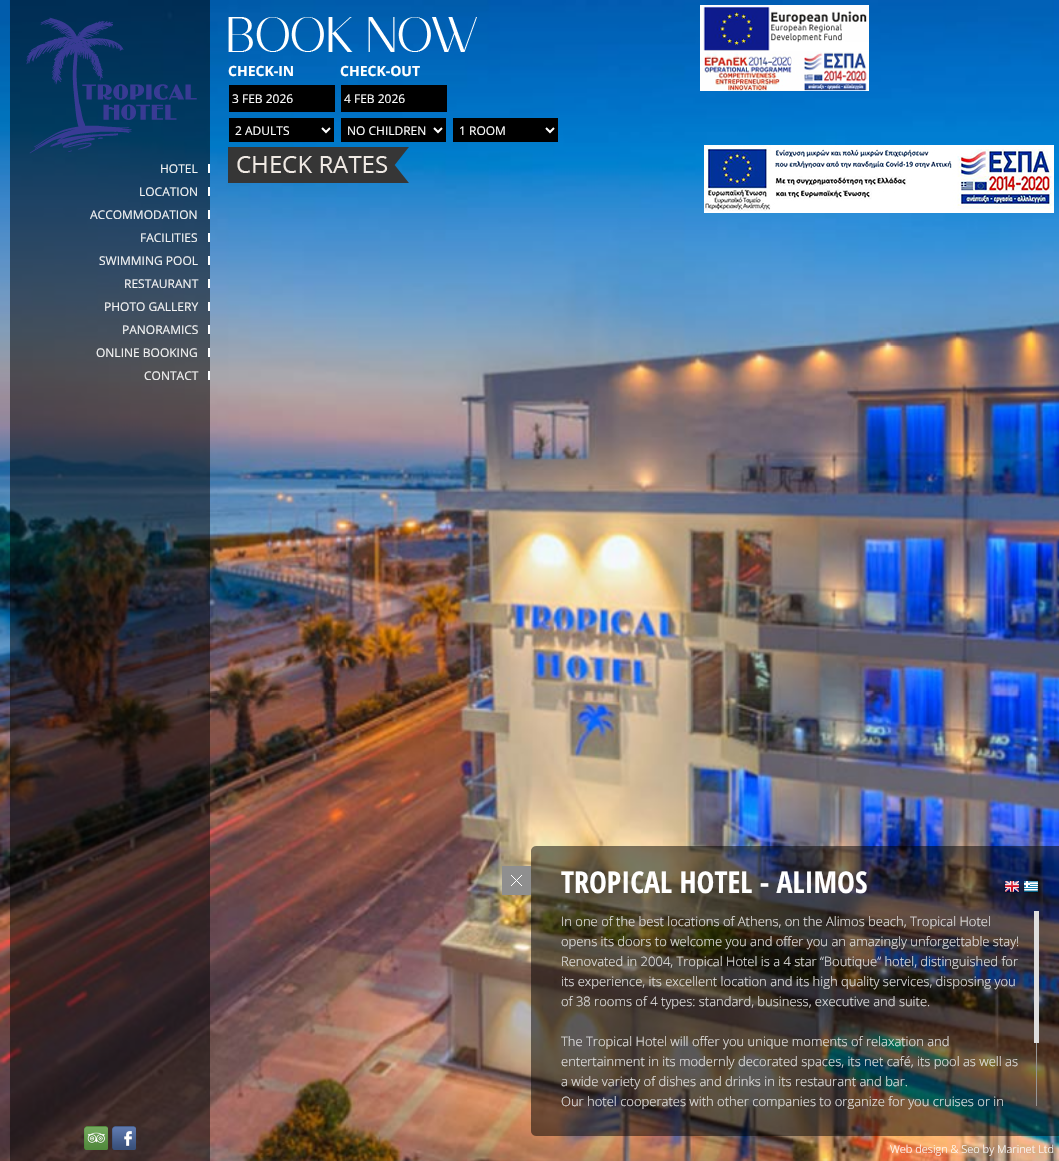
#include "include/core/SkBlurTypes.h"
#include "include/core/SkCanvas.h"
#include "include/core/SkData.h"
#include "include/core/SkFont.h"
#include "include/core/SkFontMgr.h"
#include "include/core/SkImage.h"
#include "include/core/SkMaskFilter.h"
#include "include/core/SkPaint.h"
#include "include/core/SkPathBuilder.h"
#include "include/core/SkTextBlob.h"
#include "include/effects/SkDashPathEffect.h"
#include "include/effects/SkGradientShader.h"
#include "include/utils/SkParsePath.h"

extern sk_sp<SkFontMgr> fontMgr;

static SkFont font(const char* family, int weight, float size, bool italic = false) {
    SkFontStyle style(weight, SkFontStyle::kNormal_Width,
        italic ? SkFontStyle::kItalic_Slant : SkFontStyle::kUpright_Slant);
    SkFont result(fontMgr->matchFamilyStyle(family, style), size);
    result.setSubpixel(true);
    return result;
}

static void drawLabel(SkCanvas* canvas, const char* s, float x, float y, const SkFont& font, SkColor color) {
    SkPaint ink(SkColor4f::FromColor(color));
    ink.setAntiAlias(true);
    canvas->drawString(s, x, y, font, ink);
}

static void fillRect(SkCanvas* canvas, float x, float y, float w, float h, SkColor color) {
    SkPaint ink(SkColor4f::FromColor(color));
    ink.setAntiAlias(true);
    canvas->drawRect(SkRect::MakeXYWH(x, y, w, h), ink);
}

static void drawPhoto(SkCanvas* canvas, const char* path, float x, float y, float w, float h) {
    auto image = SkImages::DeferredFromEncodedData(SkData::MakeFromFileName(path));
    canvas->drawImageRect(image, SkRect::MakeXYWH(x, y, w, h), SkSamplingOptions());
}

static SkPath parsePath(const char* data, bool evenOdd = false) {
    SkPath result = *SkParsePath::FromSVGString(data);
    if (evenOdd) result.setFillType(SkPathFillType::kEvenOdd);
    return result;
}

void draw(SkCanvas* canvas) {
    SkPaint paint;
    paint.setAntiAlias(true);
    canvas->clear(0xFFFFFFFF);
    drawPhoto(canvas, "assets/img2.png", 0, 1159, 1059, 2);
    drawPhoto(canvas, "assets/img1.png", 0, 0, 1059, 1161);
    fillRect(canvas, 10, 0, 200, 1161, 0x80000000);
    drawPhoto(canvas, "assets/img3.png", 700, 5, 169, 86);
    drawPhoto(canvas, "assets/img4.png", 26, 17, 171, 137);
    drawPhoto(canvas, "assets/img5.png", 228, 17, 249, 35);
    SkFont font1 = font("Open Sans", 700, 14);
    drawLabel(canvas, "CHECK-IN", 228, 76, font1, 0xFFFFFFFF);
    drawLabel(canvas, "CHECK-OUT", 340, 76, font1, 0xFFFFFFFF);
    fillRect(canvas, 229, 85, 106, 27, 0xFF000000);
    SkFont font2 = font("Open Sans", 400, 12);
    drawLabel(canvas, "3 FEB 2026", 232, 103, font2, 0xFFFFFFFF);
    fillRect(canvas, 341, 85, 106, 27, 0xFF000000);
    drawLabel(canvas, "4 FEB 2026", 344, 103, font2, 0xFFFFFFFF);
    fillRect(canvas, 229, 118, 105, 24, 0xFF000000);
    paint.setStroke(true);
    paint.setStrokeWidth(2);
    paint.setColor(0xFFFFFFFF);
    canvas->drawPath(parsePath("M322 128L326 132L330 128"), paint);
    drawLabel(canvas, "2 ADULTS", 235, 135, font2, 0xFFFFFFFF);
    fillRect(canvas, 341, 118, 105, 24, 0xFF000000);
    canvas->drawPath(parsePath("M434 128L438 132L442 128"), paint);
    drawLabel(canvas, "NO CHILDREN", 347, 135, font2, 0xFFFFFFFF);
    fillRect(canvas, 453, 118, 105, 24, 0xFF000000);
    canvas->drawPath(parsePath("M546 128L550 132L554 128"), paint);
    drawLabel(canvas, "1 ROOM", 459, 135, font2, 0xFFFFFFFF);
    drawPhoto(canvas, "assets/img6.png", 228, 147, 181, 36);
    fillRect(canvas, 208, 164, 2, 9, 0xFFFFFFFF);
    drawLabel(canvas, "HOTEL", 160, 173, font2, 0xFFF4F4F4);
    fillRect(canvas, 208, 187, 2, 9, 0xFFFFFFFF);
    drawLabel(canvas, "LOCATION", 139, 196, font2, 0xFFF4F4F4);
    fillRect(canvas, 208, 210, 2, 9, 0xFFFFFFFF);
    drawLabel(canvas, "ACCOMMODATION", 90, 219, font2, 0xFFF4F4F4);
    fillRect(canvas, 208, 233, 2, 9, 0xFFFFFFFF);
    drawLabel(canvas, "FACILITIES", 140, 242, font2, 0xFFF4F4F4);
    fillRect(canvas, 208, 256, 2, 9, 0xFFFFFFFF);
    drawLabel(canvas, "SWIMMING POOL", 99, 265, font2, 0xFFF4F4F4);
    fillRect(canvas, 208, 279, 2, 9, 0xFFFFFFFF);
    drawLabel(canvas, "RESTAURANT", 124, 288, font2, 0xFFF4F4F4);
    fillRect(canvas, 208, 302, 2, 9, 0xFFFFFFFF);
    drawLabel(canvas, "PHOTO GALLERY", 104, 311, font2, 0xFFF4F4F4);
    fillRect(canvas, 208, 325, 2, 9, 0xFFFFFFFF);
    drawLabel(canvas, "PANORAMICS", 122, 334, font2, 0xFFF4F4F4);
    fillRect(canvas, 208, 348, 2, 9, 0xFFFFFFFF);
    drawLabel(canvas, "ONLINE BOOKING", 96, 357, font2, 0xFFF4F4F4);
    fillRect(canvas, 208, 371, 2, 9, 0xFFFFFFFF);
    drawLabel(canvas, "CONTACT", 144, 380, font2, 0xFFF4F4F4);
    drawPhoto(canvas, "assets/img7.png", 704, 145, 350, 68);
    drawPhoto(canvas, "assets/img8.png", 502, 866, 29, 29);
    drawPhoto(canvas, "assets/img9.png", 531, 846, 528, 290);
    SkFont font3 = font("Open Sans Condensed", 700, 30);
    drawLabel(canvas, "TROPICAL HOTEL - ALIMOS", 561, 893, font3, 0xFFFFFFFF);
    SkFont font4 = font("Open Sans", 300, 13);
    drawLabel(canvas, "In one of the best locations of Athens, on the Alimos beach, Tropical Hotel", 561, 926, font4, 0xFFE4E4E4);
    drawLabel(canvas, "opens its doors to welcome you and offer you an amazingly unforgettable stay!", 561, 946, font4, 0xFFE4E4E4);
    drawLabel(canvas, "Renovated in 2004, Tropical Hotel is a 4 star “Boutique” hotel, distinguished for", 561, 966, font4, 0xFFE4E4E4);
    drawLabel(canvas, "its experience, its excellent location and its high quality services, disposing you", 561, 986, font4, 0xFFE4E4E4);
    drawLabel(canvas, "of 38 rooms of 4 types: standard, business, executive and suite.", 561, 1006, font4, 0xFFE4E4E4);
    drawLabel(canvas, "The Tropical Hotel will offer you unique moments of relaxation and", 561, 1046, font4, 0xFFE4E4E4);
    drawLabel(canvas, "entertainment in its modernly decorated spaces, its net café, its pool as well as", 561, 1066, font4, 0xFFE4E4E4);
    drawLabel(canvas, "a wide variety of dishes and drinks in its restaurant and bar.", 561, 1086, font4, 0xFFE4E4E4);
    drawLabel(canvas, "Our hotel cooperates with other companies to organize for you cruises or in", 561, 1106, font4, 0xFFE4E4E4);
    fillRect(canvas, 1036, 1043, 1, 63, 0xFF959595);
    fillRect(canvas, 1034, 911, 5, 132, 0xFFDEDEDE);
    drawPhoto(canvas, "assets/img10.png", 1004, 880, 16, 13);
    drawPhoto(canvas, "assets/img11.png", 1023, 880, 15, 13);
    drawPhoto(canvas, "assets/img12.png", 84, 1126, 24, 24);
    drawPhoto(canvas, "assets/img13.png", 112, 1126, 24, 24);
    SkFont font5 = font("Open Sans", 300, 11);
    drawLabel(canvas, "Web design & Seo by Marinet Ltd", 890, 1153, font5, 0xFFFFFFFF);
}
